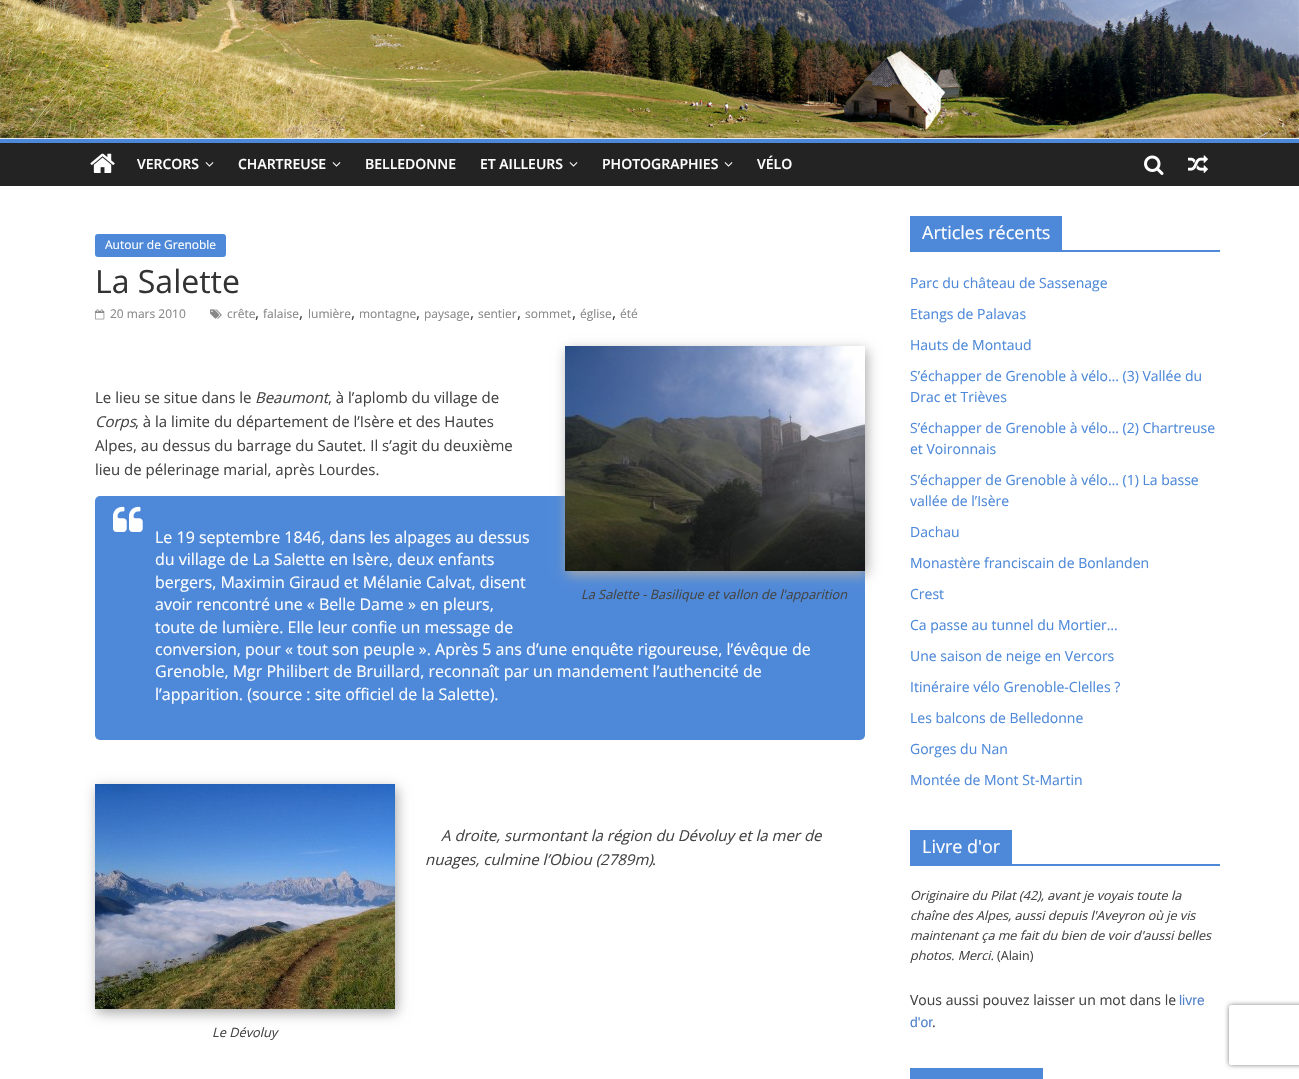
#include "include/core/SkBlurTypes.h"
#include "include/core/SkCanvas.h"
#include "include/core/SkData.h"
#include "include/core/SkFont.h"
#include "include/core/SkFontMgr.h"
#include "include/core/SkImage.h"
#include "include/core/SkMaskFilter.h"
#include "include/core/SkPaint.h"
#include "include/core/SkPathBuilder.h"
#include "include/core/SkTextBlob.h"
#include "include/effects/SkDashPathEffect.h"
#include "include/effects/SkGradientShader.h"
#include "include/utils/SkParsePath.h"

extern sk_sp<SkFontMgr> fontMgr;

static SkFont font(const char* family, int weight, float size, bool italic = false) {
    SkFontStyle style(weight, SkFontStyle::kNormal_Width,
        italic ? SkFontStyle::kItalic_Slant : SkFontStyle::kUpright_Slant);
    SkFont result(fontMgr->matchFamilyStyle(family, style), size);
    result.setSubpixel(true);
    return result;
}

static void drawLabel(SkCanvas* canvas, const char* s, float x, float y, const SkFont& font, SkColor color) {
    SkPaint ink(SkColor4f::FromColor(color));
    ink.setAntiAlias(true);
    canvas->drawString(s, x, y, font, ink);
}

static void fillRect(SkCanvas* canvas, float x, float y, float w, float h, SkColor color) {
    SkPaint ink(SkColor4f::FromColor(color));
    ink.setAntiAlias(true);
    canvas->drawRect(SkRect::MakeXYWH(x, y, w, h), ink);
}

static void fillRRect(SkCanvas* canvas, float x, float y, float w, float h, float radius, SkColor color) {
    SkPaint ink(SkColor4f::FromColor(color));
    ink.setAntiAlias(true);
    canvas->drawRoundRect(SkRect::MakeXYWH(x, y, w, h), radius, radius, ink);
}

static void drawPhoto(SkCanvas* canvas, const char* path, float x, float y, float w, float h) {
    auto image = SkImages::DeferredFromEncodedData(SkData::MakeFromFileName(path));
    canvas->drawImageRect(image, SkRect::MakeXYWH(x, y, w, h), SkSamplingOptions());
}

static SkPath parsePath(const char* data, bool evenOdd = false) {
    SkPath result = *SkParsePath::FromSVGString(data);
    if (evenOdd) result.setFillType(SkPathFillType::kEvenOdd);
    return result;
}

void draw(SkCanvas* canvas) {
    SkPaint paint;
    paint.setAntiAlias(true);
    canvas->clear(0xFFFFFFFF);
    drawPhoto(canvas, "assets/img1.png", 0, 0, 1299, 138);
    fillRect(canvas, 0, 138, 1299, 1, 0xFFEAEAEA);
    fillRect(canvas, 0, 143, 1299, 43, 0xFF232323);
    fillRect(canvas, 0, 139, 1299, 4, 0xFF4E89D9);
    drawPhoto(canvas, "assets/img2.png", 90, 153, 25, 20);
    SkFont font1 = font("Open Sans", 600, 14);
    drawLabel(canvas, "VERCORS", 137, 169, font1, 0xFFFFFFFF);
    drawPhoto(canvas, "assets/img3.png", 205, 162, 9, 5);
    drawLabel(canvas, "CHARTREUSE", 238, 169, font1, 0xFFFFFFFF);
    drawPhoto(canvas, "assets/img3.png", 332, 162, 9, 5);
    drawLabel(canvas, "BELLEDONNE", 365, 169, font1, 0xFFFFFFFF);
    drawLabel(canvas, "ET AILLEURS", 480, 169, font1, 0xFFFFFFFF);
    drawPhoto(canvas, "assets/img3.png", 569, 162, 9, 5);
    drawLabel(canvas, "PHOTOGRAPHIES", 602, 169, font1, 0xFFFFFFFF);
    drawPhoto(canvas, "assets/img3.png", 724, 162, 9, 5);
    drawLabel(canvas, "VÉLO", 757, 169, font1, 0xFFFFFFFF);
    drawPhoto(canvas, "assets/img4.png", 1144, 155, 20, 20);
    drawPhoto(canvas, "assets/img5.png", 1188, 155, 20, 18);
    fillRRect(canvas, 95, 234, 131, 23, 3, 0xFF4E89D9);
    SkFont font2 = font("Open Sans", 400, 12);
    drawLabel(canvas, "Autour de Grenoble", 105, 249, font2, 0xFFFFFFFF);
    SkFont font3 = font("Open Sans", 400, 32);
    drawLabel(canvas, "La Salette", 95, 293, font3, 0xFF333333);
    drawPhoto(canvas, "assets/img6.png", 95, 309, 10, 11);
    drawLabel(canvas, "20 mars 2010", 110, 318, font2, 0xFF888888);
    drawPhoto(canvas, "assets/img7.png", 210, 309, 12, 10);
    drawLabel(canvas, "crête", 227, 318, font2, 0xFF888888);
    SkFont font4 = font("Open Sans", 400, 16);
    drawLabel(canvas, ",", 255, 318, font4, 0xFF444444);
    drawLabel(canvas, "falaise", 263, 318, font2, 0xFF888888);
    drawLabel(canvas, ",", 299, 318, font4, 0xFF444444);
    drawLabel(canvas, "lumière", 308, 318, font2, 0xFF888888);
    drawLabel(canvas, ",", 351, 318, font4, 0xFF444444);
    drawLabel(canvas, "montagne", 359, 318, font2, 0xFF888888);
    drawLabel(canvas, ",", 416, 318, font4, 0xFF444444);
    drawLabel(canvas, "paysage", 424, 318, font2, 0xFF888888);
    drawLabel(canvas, ",", 470, 318, font4, 0xFF444444);
    drawLabel(canvas, "sentier", 478, 318, font2, 0xFF888888);
    drawLabel(canvas, ",", 517, 318, font4, 0xFF444444);
    drawLabel(canvas, "sommet", 525, 318, font2, 0xFF888888);
    drawLabel(canvas, ",", 572, 318, font4, 0xFF444444);
    drawLabel(canvas, "église", 580, 318, font2, 0xFF888888);
    drawLabel(canvas, ",", 612, 318, font4, 0xFF444444);
    drawLabel(canvas, "été", 620, 318, font2, 0xFF888888);
    SkFont font5 = font("Open Sans", 400, 15);
    drawLabel(canvas, "Le lieu se situe dans le", 95, 403, font5, 0xFF444444);
    SkFont font6 = font("Open Sans", 400, 15, true);
    drawLabel(canvas, "Beaumont", 255, 403, font6, 0xFF444444);
    drawLabel(canvas, ", à l’aplomb du village de", 328, 403, font5, 0xFF444444);
    drawLabel(canvas, "Corps", 95, 427, font6, 0xFF444444);
    drawLabel(canvas, ", à la limite du département de l’Isère et des Hautes", 135, 427, font5, 0xFF444444);
    drawLabel(canvas, "Alpes, au dessus du barrage du Sautet. Il s’agit du deuxième", 95, 451, font5, 0xFF444444);
    drawLabel(canvas, "lieu de pélerinage marial, après Lourdes.", 95, 475, font5, 0xFF444444);
    fillRRect(canvas, 95, 496, 770, 244, 5, 0xFF4E89D9);
    drawPhoto(canvas, "assets/img8.png", 113, 506, 30, 26);
    drawLabel(canvas, "Le 19 septembre 1846, dans les alpages au dessus", 155, 543, font4, 0xFFFFFFFF);
    drawLabel(canvas, "du village de La Salette en Isère, deux enfants", 155, 565, font4, 0xFFFFFFFF);
    drawLabel(canvas, "bergers, Maximin Giraud et Mélanie Calvat, disent", 155, 588, font4, 0xFFFFFFFF);
    drawLabel(canvas, "avoir rencontré une « Belle Dame » en pleurs,", 155, 610, font4, 0xFFFFFFFF);
    drawLabel(canvas, "toute de lumière. Elle leur confie un message de", 155, 633, font4, 0xFFFFFFFF);
    drawLabel(canvas, "conversion, pour « tout son peuple ». Après 5 ans d’une enquête rigoureuse, l’évêque de", 155, 655, font4, 0xFFFFFFFF);
    drawLabel(canvas, "Grenoble, Mgr Philibert de Bruillard, reconnaît par un mandement l’authencité de", 155, 677, font4, 0xFFFFFFFF);
    drawLabel(canvas, "l’apparition. (source : site officiel de la Salette).", 155, 700, font4, 0xFFFFFFFF);
    paint.setColor(0xFFAAAAAA);
    paint.setMaskFilter(SkMaskFilter::MakeBlur(kNormal_SkBlurStyle, 6));
    canvas->drawRect(SkRect::MakeXYWH(567, 350, 300, 225), paint);
    paint.setMaskFilter(nullptr);
    drawPhoto(canvas, "assets/img9.png", 565, 346, 300, 225);
    SkFont font7 = font("Open Sans", 400, 12.8f, true);
    drawLabel(canvas, "La Salette - Basilique et vallon de l'apparition", 581, 599, font7, 0xFF444444);
    drawLabel(canvas, "A droite, surmontant la région du Dévoluy et la mer de", 441, 841, font6, 0xFF444444);
    drawLabel(canvas, "nuages, culmine l’Obiou (2789m)", 425, 865, font6, 0xFF444444);
    drawLabel(canvas, ".", 652, 865, font5, 0xFF444444);
    paint.setMaskFilter(SkMaskFilter::MakeBlur(kNormal_SkBlurStyle, 6));
    canvas->drawRect(SkRect::MakeXYWH(97, 788, 300, 225), paint);
    paint.setMaskFilter(nullptr);
    drawPhoto(canvas, "assets/img10.png", 95, 784, 300, 225);
    drawLabel(canvas, "Le Dévoluy", 212, 1037, font7, 0xFF444444);
    fillRect(canvas, 910, 250, 310, 2, 0xFF4E89D9);
    fillRect(canvas, 910, 216, 152, 34, 0xFF4E89D9);
    SkFont font8 = font("Open Sans", 400, 18);
    drawLabel(canvas, "Articles récents", 922, 239, font8, 0xFFFFFFFF);
    SkFont font9 = font("Open Sans", 400, 14);
    drawLabel(canvas, "Parc du château de Sassenage", 910, 288, font9, 0xFF4E89D9);
    drawLabel(canvas, "Etangs de Palavas", 910, 319, font9, 0xFF4E89D9);
    drawLabel(canvas, "Hauts de Montaud", 910, 350, font9, 0xFF4E89D9);
    drawLabel(canvas, "S’échapper de Grenoble à vélo… (3) Vallée du", 910, 381, font9, 0xFF4E89D9);
    drawLabel(canvas, "Drac et Trièves", 910, 402, font9, 0xFF4E89D9);
    drawLabel(canvas, "S’échapper de Grenoble à vélo… (2) Chartreuse", 910, 433, font9, 0xFF4E89D9);
    drawLabel(canvas, "et Voironnais", 910, 454, font9, 0xFF4E89D9);
    drawLabel(canvas, "S’échapper de Grenoble à vélo… (1) La basse", 910, 485, font9, 0xFF4E89D9);
    drawLabel(canvas, "vallée de l’Isère", 910, 506, font9, 0xFF4E89D9);
    drawLabel(canvas, "Dachau", 910, 537, font9, 0xFF4E89D9);
    drawLabel(canvas, "Monastère franciscain de Bonlanden", 910, 568, font9, 0xFF4E89D9);
    drawLabel(canvas, "Crest", 910, 599, font9, 0xFF4E89D9);
    drawLabel(canvas, "Ca passe au tunnel du Mortier…", 910, 630, font9, 0xFF4E89D9);
    drawLabel(canvas, "Une saison de neige en Vercors", 910, 661, font9, 0xFF4E89D9);
    drawLabel(canvas, "Itinéraire vélo Grenoble-Clelles ?", 910, 692, font9, 0xFF4E89D9);
    drawLabel(canvas, "Les balcons de Belledonne", 910, 723, font9, 0xFF4E89D9);
    drawLabel(canvas, "Gorges du Nan", 910, 754, font9, 0xFF4E89D9);
    drawLabel(canvas, "Montée de Mont St-Martin", 910, 785, font9, 0xFF4E89D9);
    fillRect(canvas, 910, 864, 310, 2, 0xFF4E89D9);
    fillRect(canvas, 910, 830, 102, 34, 0xFF4E89D9);
    drawLabel(canvas, "Livre d'or", 922, 853, font8, 0xFFFFFFFF);
    SkFont font10 = font("Open Sans", 400, 12.6f, true);
    drawLabel(canvas, "Originaire du Pilat (42), avant je voyais toute la", 910, 900, font10, 0xFF444444);
    drawLabel(canvas, "chaîne des Alpes, aussi depuis l'Aveyron où je vis", 910, 920, font10, 0xFF444444);
    drawLabel(canvas, "maintenant ça me fait du bien de voir d'aussi belles", 910, 940, font10, 0xFF444444);
    drawLabel(canvas, "photos. Merci.", 910, 960, font10, 0xFF444444);
    SkFont font11 = font("Open Sans", 400, 12.6f);
    drawLabel(canvas, "(Alain)", 997, 960, font11, 0xFF444444);
    drawLabel(canvas, "Vous aussi pouvez laisser un mot dans le", 910, 1005, font9, 0xFF444444);
    SkFont font12 = font("Liberation Sans", 400, 14);
    drawLabel(canvas, "livre", 1179, 1005, font12, 0xFF5182CA);
    drawLabel(canvas, "d'or", 910, 1027, font12, 0xFF5182CA);
    drawLabel(canvas, ".", 932, 1027, font9, 0xFF444444);
    fillRect(canvas, 910, 1068, 133, 11, 0xFF4E89D9);
    canvas->save();
    canvas->clipPath(parsePath("M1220 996H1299V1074H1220ZM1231 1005H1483C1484 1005 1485 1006 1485 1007V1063C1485 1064 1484 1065 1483 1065H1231C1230 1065 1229 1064 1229 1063V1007C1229 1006 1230 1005 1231 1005Z", true), true);
    paint.setColor(0xFF808080);
    paint.setMaskFilter(SkMaskFilter::MakeBlur(kNormal_SkBlurStyle, 2.5f));
    canvas->drawRoundRect(SkRect::MakeXYWH(1229, 1005, 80, 60), 2, 2, paint);
    paint.setMaskFilter(nullptr);
    canvas->restore();
}
